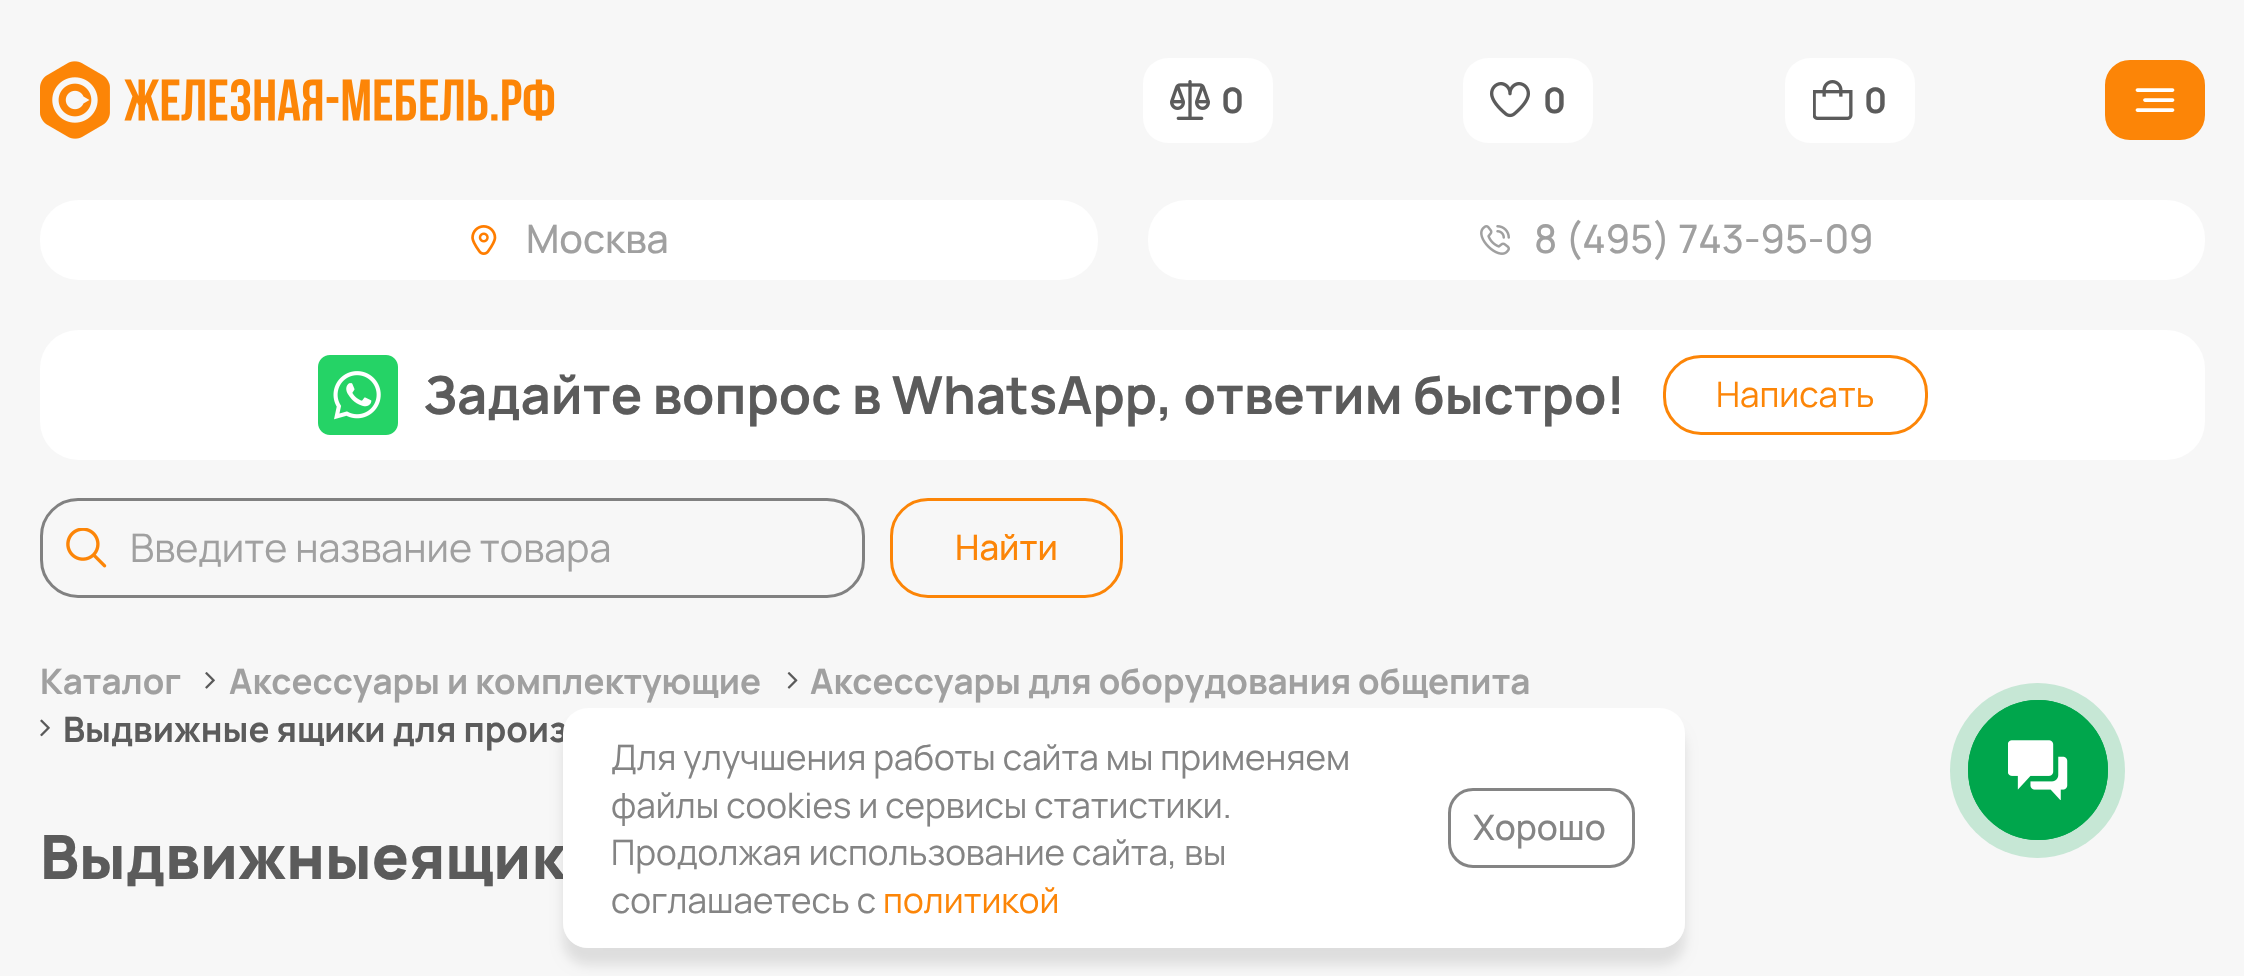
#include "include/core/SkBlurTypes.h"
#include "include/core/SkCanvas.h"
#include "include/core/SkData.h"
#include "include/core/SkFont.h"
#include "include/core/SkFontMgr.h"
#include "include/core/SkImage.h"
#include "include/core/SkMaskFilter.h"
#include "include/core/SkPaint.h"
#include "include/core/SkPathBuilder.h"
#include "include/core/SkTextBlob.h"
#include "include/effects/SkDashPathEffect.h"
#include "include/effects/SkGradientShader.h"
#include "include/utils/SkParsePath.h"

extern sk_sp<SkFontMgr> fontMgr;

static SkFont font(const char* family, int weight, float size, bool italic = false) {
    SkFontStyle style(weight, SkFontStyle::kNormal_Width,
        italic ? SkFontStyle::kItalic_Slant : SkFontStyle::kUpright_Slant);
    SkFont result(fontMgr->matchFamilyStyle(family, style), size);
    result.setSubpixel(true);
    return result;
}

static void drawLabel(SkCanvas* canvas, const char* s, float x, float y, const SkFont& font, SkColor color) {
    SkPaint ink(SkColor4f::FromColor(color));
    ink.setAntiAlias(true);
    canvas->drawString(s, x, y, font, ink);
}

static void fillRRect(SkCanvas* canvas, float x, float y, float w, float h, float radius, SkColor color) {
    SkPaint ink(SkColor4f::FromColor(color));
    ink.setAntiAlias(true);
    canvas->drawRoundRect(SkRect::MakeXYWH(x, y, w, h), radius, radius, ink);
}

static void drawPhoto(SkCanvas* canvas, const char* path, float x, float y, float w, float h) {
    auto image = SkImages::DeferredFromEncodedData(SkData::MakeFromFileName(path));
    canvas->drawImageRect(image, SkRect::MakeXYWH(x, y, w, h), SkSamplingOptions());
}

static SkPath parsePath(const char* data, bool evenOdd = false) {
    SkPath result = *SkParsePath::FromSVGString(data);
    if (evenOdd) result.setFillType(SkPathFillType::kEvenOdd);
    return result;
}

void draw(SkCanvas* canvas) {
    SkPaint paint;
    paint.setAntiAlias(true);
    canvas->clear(0xFFF7F7F7);
    drawPhoto(canvas, "assets/img1.png", 40, 61, 515, 78);
    fillRRect(canvas, 1143, 58, 130, 85, 25, 0xFFFFFFFF);
    drawPhoto(canvas, "assets/img2.png", 1170, 80, 40, 40);
    SkFont font1 = font("Manrope", 700, 35);
    drawLabel(canvas, "0", 1221, 113, font1, 0xFF5B5B5B);
    fillRRect(canvas, 1463, 58, 130, 85, 25, 0xFFFFFFFF);
    drawPhoto(canvas, "assets/img3.png", 1490, 82, 40, 36);
    drawLabel(canvas, "0", 1543, 113, font1, 0xFF5B5B5B);
    fillRRect(canvas, 1785, 58, 130, 85, 25, 0xFFFFFFFF);
    drawPhoto(canvas, "assets/img4.png", 1813, 80, 40, 40);
    drawLabel(canvas, "0", 1864, 113, font1, 0xFF5B5B5B);
    paint.setColor(0xFFFC8507);
    canvas->drawRoundRect(SkRect::MakeXYWH(2106.5f, 61.5f, 97, 77), 23.5f, 23.5f, paint);
    paint.setStroke(true);
    paint.setStrokeWidth(3);
    canvas->drawRoundRect(SkRect::MakeXYWH(2106.5f, 61.5f, 97, 77), 23.5f, 23.5f, paint);
    drawPhoto(canvas, "assets/img5.png", 2135, 88, 40, 24);
    fillRRect(canvas, 40, 200, 1058, 80, 38, 0xFFFFFFFF);
    drawPhoto(canvas, "assets/img6.png", 471, 225, 26, 30);
    SkFont font2 = font("Manrope", 500, 39.4f);
    drawLabel(canvas, "Москва", 526, 253, font2, 0xFFA0A0A0);
    fillRRect(canvas, 1148, 200, 1057, 80, 38, 0xFFFFFFFF);
    drawPhoto(canvas, "assets/img7.png", 1480, 225, 30, 30);
    drawLabel(canvas, "8 (495) 743-95-09", 1534, 253, font2, 0xFFA0A0A0);
    fillRRect(canvas, 40, 330, 2165, 130, 38, 0xFFFFFFFF);
    drawPhoto(canvas, "assets/img8.png", 318, 355, 80, 80);
    SkFont font3 = font("Manrope", 700, 52.5f);
    drawLabel(canvas, "Задайте вопрос в WhatsApp, ответим быстро!", 423, 414, font3, 0xFF5B5B5B);
    canvas->drawRoundRect(SkRect::MakeXYWH(1664.5f, 356.5f, 262, 77), 36.5f, 36.5f, paint);
    SkFont font4 = font("Manrope", 400, 35);
    drawLabel(canvas, "Написать", 1716, 407, font4, 0xFFFC8507);
    paint.setColor(0xFF818181);
    canvas->drawRoundRect(SkRect::MakeXYWH(41.5f, 499.5f, 822, 97), 36.5f, 36.5f, paint);
    drawPhoto(canvas, "assets/img9.png", 66, 528, 41, 40);
    SkFont font5 = font("Manrope", 400, 39.4f);
    drawLabel(canvas, "Введите название товара", 130, 562, font5, 0xFFA0A0A0);
    paint.setColor(0xFFFC8507);
    canvas->drawRoundRect(SkRect::MakeXYWH(891.5f, 499.5f, 230, 97), 36.5f, 36.5f, paint);
    SkFont font6 = font("Manrope", 500, 35);
    drawLabel(canvas, "Найти", 955, 560, font6, 0xFFFC8507);
    drawLabel(canvas, "Каталог", 40, 694, font1, 0xFFA0A0A0);
    drawPhoto(canvas, "assets/img10.png", 205, 672, 10, 17);
    drawLabel(canvas, "Аксессуары и комплектующие", 229, 694, font1, 0xFFA0A0A0);
    drawPhoto(canvas, "assets/img11.png", 787, 672, 11, 17);
    drawLabel(canvas, "Аксессуары для оборудования общепита", 810, 694, font1, 0xFFA0A0A0);
    drawPhoto(canvas, "assets/img12.png", 40, 719, 10, 18);
    drawLabel(canvas, "Выдвижные ящики для произ", 63, 742, font1, 0xFF5B5B5B);
    SkFont font7 = font("Manrope", 800, 61.25f);
    drawLabel(canvas, "Выдвижные ящик", 40, 879, font7, 0xFF5B5B5B);
    paint.setStroke(false);
    paint.setColor(0xFFC6E7D5);
    canvas->drawCircle(2037.5f, 770.5f, 87.5f, paint);
    paint.setStroke(true);
    paint.setStrokeWidth(2);
    paint.setColor(0xFF00A64C);
    canvas->drawCircle(2038, 770, 69, paint);
    paint.setStroke(false);
    canvas->drawCircle(2038, 770, 70, paint);
    drawPhoto(canvas, "assets/img13.png", 2008, 740, 60, 60);
    canvas->save();
    canvas->clipPath(parsePath("M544 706H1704V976H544ZM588 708H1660C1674 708 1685 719 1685 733V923C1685 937 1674 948 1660 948H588C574 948 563 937 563 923V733C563 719 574 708 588 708Z", true), true);
    paint.setColor(0x1A000000);
    paint.setMaskFilter(SkMaskFilter::MakeBlur(kNormal_SkBlurStyle, 6));
    canvas->drawRoundRect(SkRect::MakeXYWH(563, 725, 1122, 240), 25, 25, paint);
    paint.setMaskFilter(nullptr);
    canvas->restore();
    fillRRect(canvas, 563, 708, 1122, 240, 25, 0xFFFFFFFF);
    drawLabel(canvas, "Для улучшения работы сайта мы применяем", 611, 770, font4, 0xFF848484);
    drawLabel(canvas, "файлы cookies и сервисы статистики.", 611, 818, font4, 0xFF848484);
    drawLabel(canvas, "Продолжая использование сайта, вы", 611, 865, font4, 0xFF848484);
    drawLabel(canvas, "соглашаетесь с", 611, 913, font4, 0xFF848484);
    drawLabel(canvas, "политикой", 883, 913, font4, 0xFFFC8507);
    paint.setStroke(true);
    paint.setStrokeWidth(3);
    paint.setColor(0xFF848484);
    canvas->drawRoundRect(SkRect::MakeXYWH(1449.5f, 789.5f, 184, 77), 23.5f, 23.5f, paint);
    drawLabel(canvas, "Хорошо", 1473, 840, font6, 0xFF848484);
}
